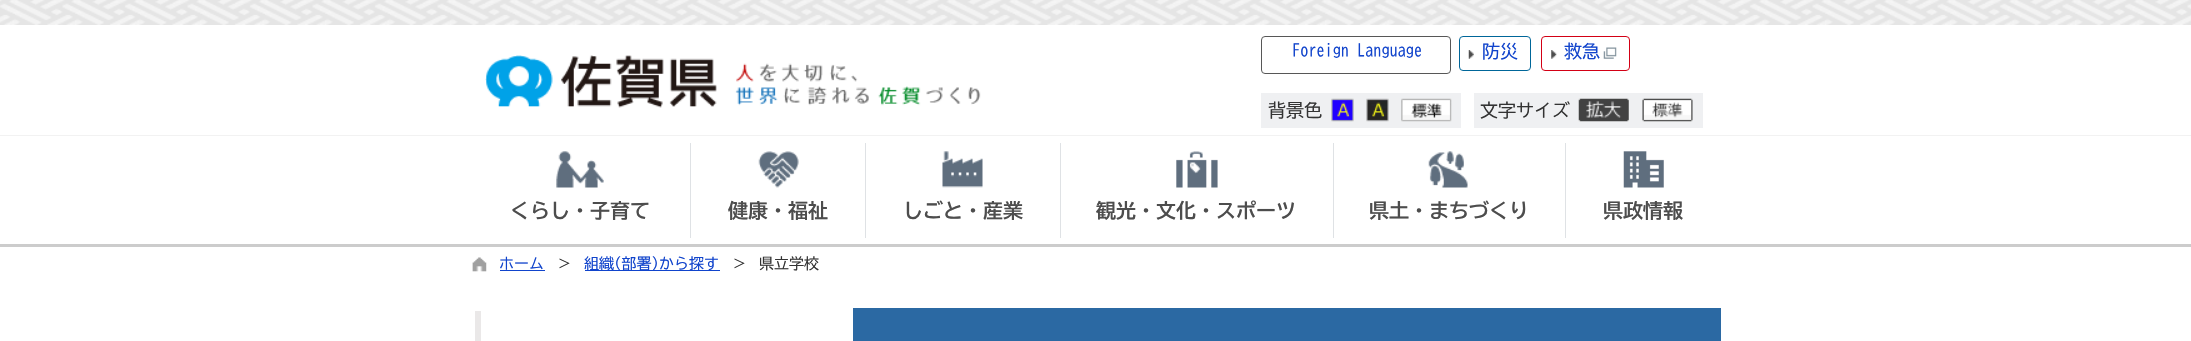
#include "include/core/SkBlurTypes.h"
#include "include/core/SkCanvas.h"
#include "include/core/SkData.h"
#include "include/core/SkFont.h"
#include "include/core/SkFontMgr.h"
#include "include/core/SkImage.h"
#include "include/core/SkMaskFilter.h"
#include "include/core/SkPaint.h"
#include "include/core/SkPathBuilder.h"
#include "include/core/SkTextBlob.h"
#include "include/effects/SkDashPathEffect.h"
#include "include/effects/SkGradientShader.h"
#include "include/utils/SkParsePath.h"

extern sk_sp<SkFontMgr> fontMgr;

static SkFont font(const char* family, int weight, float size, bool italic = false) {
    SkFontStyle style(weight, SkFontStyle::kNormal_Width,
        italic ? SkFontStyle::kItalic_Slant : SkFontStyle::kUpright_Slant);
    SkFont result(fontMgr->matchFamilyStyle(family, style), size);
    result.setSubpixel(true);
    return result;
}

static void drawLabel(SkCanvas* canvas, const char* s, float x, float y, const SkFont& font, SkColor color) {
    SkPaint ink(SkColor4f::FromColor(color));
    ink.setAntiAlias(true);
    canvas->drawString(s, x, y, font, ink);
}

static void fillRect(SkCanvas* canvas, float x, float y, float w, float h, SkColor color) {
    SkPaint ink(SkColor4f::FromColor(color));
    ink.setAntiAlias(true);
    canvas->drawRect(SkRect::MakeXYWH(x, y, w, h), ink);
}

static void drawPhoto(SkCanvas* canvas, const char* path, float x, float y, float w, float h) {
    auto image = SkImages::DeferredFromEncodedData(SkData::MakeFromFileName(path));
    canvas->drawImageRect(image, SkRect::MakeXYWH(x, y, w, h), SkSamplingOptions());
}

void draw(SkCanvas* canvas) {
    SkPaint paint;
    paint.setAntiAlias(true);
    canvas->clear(0xFFFFFFFF);
    drawPhoto(canvas, "assets/img1.png", 0, 0, 2191, 25);
    drawPhoto(canvas, "assets/img2.png", 485, 55, 496, 53);
    paint.setStroke(true);
    paint.setStrokeWidth(1);
    paint.setColor(0xFF575757);
    canvas->drawRoundRect(SkRect::MakeXYWH(1261.5f, 36.5f, 189, 37), 3.5f, 3.5f, paint);
    SkFont font1 = font("BIZ UDGothic", 400, 16.25f);
    drawLabel(canvas, "Foreign Language", 1292, 56, font1, 0xFF1144CC);
    drawPhoto(canvas, "assets/img3.png", 1468, 50, 6, 9);
    paint.setColor(0xFF006699);
    canvas->drawRoundRect(SkRect::MakeXYWH(1459.5f, 36.5f, 71, 34), 3.5f, 3.5f, paint);
    SkFont font2 = font("BIZ UDGothic", 400, 18);
    drawLabel(canvas, "防災", 1482, 58, font2, 0xFF1144CC);
    drawPhoto(canvas, "assets/img4.png", 1551, 50, 6, 9);
    paint.setColor(0xFFD30015);
    canvas->drawRoundRect(SkRect::MakeXYWH(1541.5f, 36.5f, 88, 34), 3.5f, 3.5f, paint);
    drawLabel(canvas, "救急", 1564, 58, font2, 0xFF1144CC);
    drawPhoto(canvas, "assets/img5.png", 1603, 47, 14, 12);
    fillRect(canvas, 1261, 93, 200, 35, 0xFFEFF0F2);
    drawLabel(canvas, "背景色", 1268, 117, font2, 0xFF333333);
    drawPhoto(canvas, "assets/img6.png", 1331, 98, 23, 24);
    drawPhoto(canvas, "assets/img7.png", 1366, 98, 23, 24);
    drawPhoto(canvas, "assets/img8.png", 1401, 98, 51, 24);
    fillRect(canvas, 1474, 93, 229, 35, 0xFFEFF0F2);
    drawLabel(canvas, "文字サイズ", 1480, 117, font2, 0xFF333333);
    drawPhoto(canvas, "assets/img9.png", 1578, 98, 51, 24);
    drawPhoto(canvas, "assets/img10.png", 1642, 98, 51, 24);
    fillRect(canvas, 0, 135, 2191, 1, 0xFFF2F2F2);
    fillRect(canvas, 0, 244, 2191, 3, 0xFFCCCCCC);
    drawPhoto(canvas, "assets/img11.png", 556, 151, 48, 37);
    SkFont font3 = font("BIZ UDGothic", 700, 20);
    drawLabel(canvas, "くらし・子育て", 510, 218, font3, 0xFF4D4D4D);
    fillRect(canvas, 690, 143, 1, 95, 0xFFDFE2E5);
    drawPhoto(canvas, "assets/img12.png", 758, 151, 41, 37);
    drawLabel(canvas, "健康・福祉", 728, 218, font3, 0xFF4D4D4D);
    fillRect(canvas, 865, 143, 1, 95, 0xFFDFE2E5);
    drawPhoto(canvas, "assets/img13.png", 942, 151, 41, 37);
    drawLabel(canvas, "しごと・産業", 903, 218, font3, 0xFF4D4D4D);
    fillRect(canvas, 1060, 143, 1, 95, 0xFFDFE2E5);
    drawPhoto(canvas, "assets/img14.png", 1176, 151, 42, 37);
    drawLabel(canvas, "観光・文化・スポーツ", 1096, 218, font3, 0xFF4D4D4D);
    fillRect(canvas, 1565, 143, 1, 95, 0xFFDFE2E5);
    fillRect(canvas, 1333, 143, 1, 95, 0xFFDFE2E5);
    drawPhoto(canvas, "assets/img15.png", 1428, 151, 40, 37);
    drawLabel(canvas, "県土・まちづくり", 1369, 218, font3, 0xFF4D4D4D);
    drawPhoto(canvas, "assets/img16.png", 1623, 151, 41, 37);
    drawLabel(canvas, "県政情報", 1603, 218, font3, 0xFF4D4D4D);
    drawPhoto(canvas, "assets/img17.png", 472, 257, 15, 15);
    SkFont font4 = font("BIZ UDGothic", 400, 15);
    drawLabel(canvas, "ホーム", 499, 269, font4, 0xFF1144CC);
    fillRect(canvas, 500, 270, 45, 1, 0xFF1144CC);
    drawLabel(canvas, "＞", 557, 269, font4, 0xFF333333);
    fillRect(canvas, 585, 270, 135, 1, 0xFF1144CC);
    drawLabel(canvas, "組織(部署)から探す", 584, 269, font4, 0xFF1144CC);
    drawLabel(canvas, "＞", 732, 269, font4, 0xFF333333);
    drawLabel(canvas, "県立学校", 759, 269, font4, 0xFF333333);
    fillRect(canvas, 475, 311, 6, 30, 0xFFEAE8E8);
    fillRect(canvas, 853, 308, 868, 33, 0xFF2B69A3);
}
